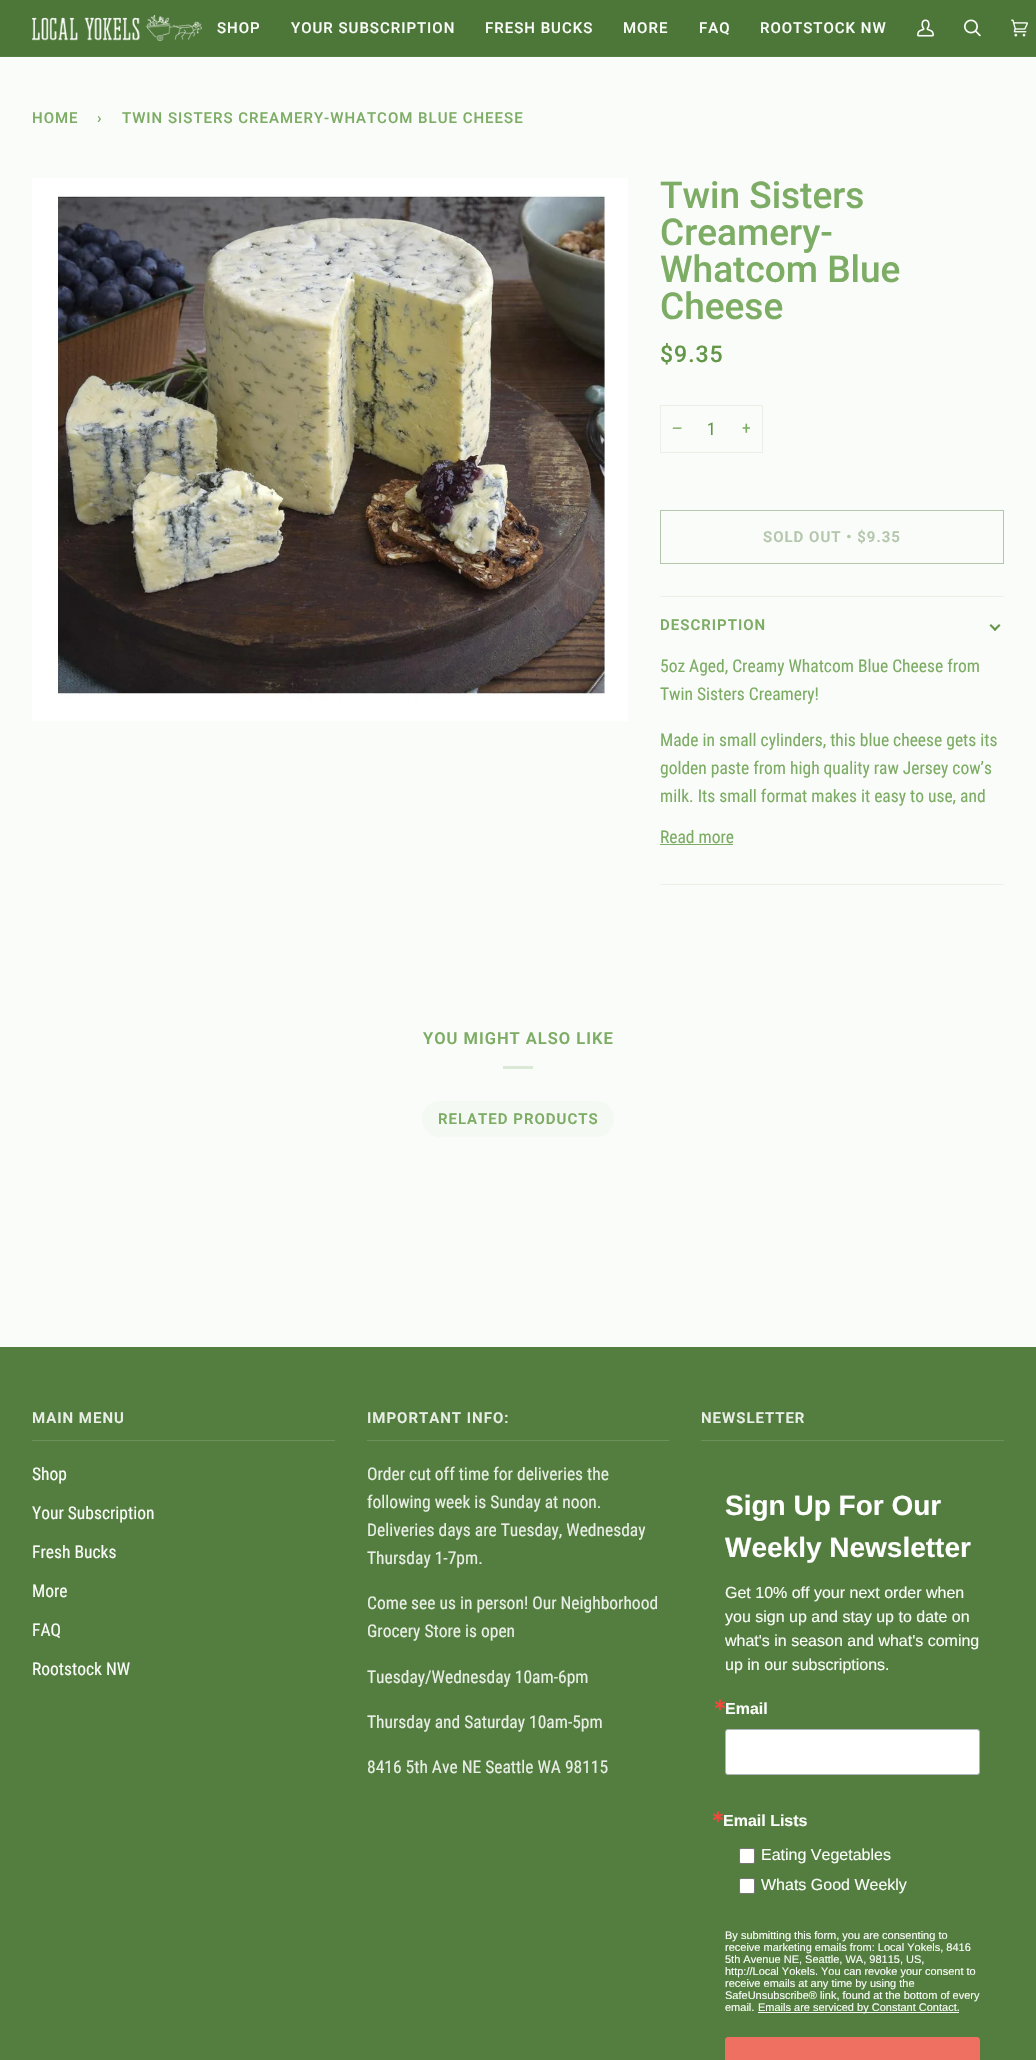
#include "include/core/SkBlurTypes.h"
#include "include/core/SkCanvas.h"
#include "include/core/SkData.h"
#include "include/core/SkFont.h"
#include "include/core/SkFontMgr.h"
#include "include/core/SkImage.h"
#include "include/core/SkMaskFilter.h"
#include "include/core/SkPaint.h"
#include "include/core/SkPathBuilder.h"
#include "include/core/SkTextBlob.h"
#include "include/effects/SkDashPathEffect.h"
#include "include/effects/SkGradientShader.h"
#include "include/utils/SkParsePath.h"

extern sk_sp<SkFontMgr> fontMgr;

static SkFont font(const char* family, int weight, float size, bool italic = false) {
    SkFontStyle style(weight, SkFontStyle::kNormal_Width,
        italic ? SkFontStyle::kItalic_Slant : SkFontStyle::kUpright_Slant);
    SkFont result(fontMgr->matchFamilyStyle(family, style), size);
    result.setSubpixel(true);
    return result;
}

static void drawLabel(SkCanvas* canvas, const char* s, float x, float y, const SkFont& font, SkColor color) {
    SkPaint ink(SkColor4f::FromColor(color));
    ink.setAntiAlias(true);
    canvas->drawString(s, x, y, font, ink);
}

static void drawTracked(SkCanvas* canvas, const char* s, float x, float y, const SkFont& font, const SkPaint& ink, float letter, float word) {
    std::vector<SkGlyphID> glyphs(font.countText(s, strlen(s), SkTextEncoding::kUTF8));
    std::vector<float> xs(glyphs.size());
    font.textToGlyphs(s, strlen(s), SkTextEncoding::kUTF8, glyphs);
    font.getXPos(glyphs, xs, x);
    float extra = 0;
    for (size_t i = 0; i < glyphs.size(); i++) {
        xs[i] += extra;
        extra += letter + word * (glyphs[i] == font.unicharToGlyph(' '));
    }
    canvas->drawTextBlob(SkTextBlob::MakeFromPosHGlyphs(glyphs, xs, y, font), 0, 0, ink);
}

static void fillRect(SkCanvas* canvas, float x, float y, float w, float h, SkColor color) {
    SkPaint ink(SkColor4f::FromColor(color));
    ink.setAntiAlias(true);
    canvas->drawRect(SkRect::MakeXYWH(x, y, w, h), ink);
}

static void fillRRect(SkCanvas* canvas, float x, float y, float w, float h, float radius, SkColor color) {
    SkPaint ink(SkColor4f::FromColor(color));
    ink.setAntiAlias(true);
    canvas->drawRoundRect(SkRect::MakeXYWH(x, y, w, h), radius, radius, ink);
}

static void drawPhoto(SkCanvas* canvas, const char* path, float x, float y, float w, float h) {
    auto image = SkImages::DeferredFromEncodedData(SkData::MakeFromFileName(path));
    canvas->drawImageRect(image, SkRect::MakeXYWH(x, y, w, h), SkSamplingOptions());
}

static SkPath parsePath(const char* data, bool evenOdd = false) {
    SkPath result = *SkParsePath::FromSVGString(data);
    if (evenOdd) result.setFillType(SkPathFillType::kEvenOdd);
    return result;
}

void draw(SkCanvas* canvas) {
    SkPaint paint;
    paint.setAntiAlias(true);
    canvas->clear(0xFFF9FCF8);
    fillRect(canvas, 0, 0, 1036, 56, 0xFF4D7639);
    fillRect(canvas, 0, 56, 1036, 1, 0xFF547E3F);
    drawPhoto(canvas, "assets/img1.png", 32, 15, 170, 26);
    SkFont font1 = font("Roboto", 500, 15);
    paint.setColor(0xFFF9FCF8);
    drawTracked(canvas, "SHOP", 217, 33, font1, paint, 1, 0);
    drawTracked(canvas, "YOUR SUBSCRIPTION", 291, 33, font1, paint, 1, 0);
    drawTracked(canvas, "FRESH BUCKS", 485, 33, font1, paint, 1, 0);
    drawTracked(canvas, "MORE", 623, 33, font1, paint, 1, 0);
    drawTracked(canvas, "FAQ", 699, 33, font1, paint, 1, 0);
    drawTracked(canvas, "ROOTSTOCK NW", 760, 33, font1, paint, 1, 0);
    drawPhoto(canvas, "assets/img2.png", 917, 19, 17, 18);
    drawPhoto(canvas, "assets/img3.png", 964, 19, 17, 18);
    drawPhoto(canvas, "assets/img4.png", 1011, 19, 17, 18);
    paint.setColor(0xFF7DAC65);
    drawTracked(canvas, "HOME", 32, 123, font1, paint, 1, 0);
    drawTracked(canvas, "›", 97, 123, font1, paint, 1, 0);
    drawTracked(canvas, "TWIN SISTERS CREAMERY-WHATCOM BLUE CHEESE", 122, 123, font1, paint, 1, 0);
    drawPhoto(canvas, "assets/img5.png", 32, 178, 596, 543);
    SkFont font2 = font("Roboto", 500, 37);
    drawLabel(canvas, "Twin Sisters", 660, 208, font2, 0xFF7DAC65);
    drawLabel(canvas, "Creamery-", 660, 245, font2, 0xFF7DAC65);
    drawLabel(canvas, "Whatcom Blue", 660, 282, font2, 0xFF7DAC65);
    drawLabel(canvas, "Cheese", 660, 319, font2, 0xFF7DAC65);
    SkFont font3 = font("Roboto", 500, 23);
    paint.setColor(0xFF639648);
    drawTracked(canvas, "$9.35", 660, 362, font3, paint, 1, 0);
    paint.setStroke(true);
    paint.setStrokeWidth(1);
    paint.setColor(0xFFE9F0E6);
    canvas->drawRect(SkRect::MakeXYWH(660.5f, 405.5f, 102, 47), paint);
    SkFont font4 = font("Liberation Sans", 400, 17.5f);
    drawLabel(canvas, "−", 672, 434, font4, 0xFF7DAC65);
    SkFont font5 = font("Roboto Condensed", 400, 17.5f);
    drawLabel(canvas, "1", 707, 435, font5, 0xFF639648);
    drawLabel(canvas, "+", 742, 434, font5, 0xFF7DAC65);
    paint.setColor(0xFFB4C6AC);
    canvas->drawRect(SkRect::MakeXYWH(660.5f, 510.5f, 343, 53), paint);
    SkFont font6 = font("Roboto", 600, 15);
    paint.setStroke(false);
    drawTracked(canvas, "SOLD OUT • $9.35", 763, 542, font6, paint, 1, 0);
    fillRect(canvas, 660, 596, 344, 1, 0xFFE9F0E6);
    fillRect(canvas, 660, 884, 344, 1, 0xFFE9F0E6);
    paint.setColor(0xFF7DAC65);
    drawTracked(canvas, "DESCRIPTION", 660, 630, font6, paint, 1, 0);
    paint.setColor(0xFF639648);
    canvas->drawPath(parsePath("M993.5 629.5L999 624L1000.5 625.5L995 631Z"), paint);
    canvas->drawPath(parsePath("M989.5 625.5L991 624L996.5 629.5L995 631Z"), paint);
    drawLabel(canvas, "5oz Aged, Creamy Whatcom Blue Cheese from", 660, 672, font5, 0xFF7DAC65);
    drawLabel(canvas, "Twin Sisters Creamery!", 660, 700, font5, 0xFF7DAC65);
    drawLabel(canvas, "Made in small cylinders, this blue cheese gets its", 660, 746, font5, 0xFF7DAC65);
    drawLabel(canvas, "golden paste from high quality raw Jersey cow’s", 660, 774, font5, 0xFF7DAC65);
    drawLabel(canvas, "milk. Its small format makes it easy to use, and", 660, 802, font5, 0xFF7DAC65);
    drawLabel(canvas, "Read more", 660, 843, font5, 0xFF7DAC65);
    fillRect(canvas, 660, 844, 73, 1, 0xFF7DAC65);
    SkFont font7 = font("Roboto", 600, 16.5f);
    paint.setColor(0xFF7DAC65);
    drawTracked(canvas, "YOU MIGHT ALSO LIKE", 423, 1044, font7, paint, 1, 0);
    fillRect(canvas, 503, 1066, 30, 3, 0xFFDBE8D5);
    fillRRect(canvas, 422, 1101, 192, 36, 18, 0xFFF5F9F4);
    drawTracked(canvas, "RELATED PRODUCTS", 438, 1124, font6, paint, 1, 0);
    fillRect(canvas, 0, 1347, 1036, 713, 0xFF547E3F);
    fillRect(canvas, 32, 1440, 303, 1, 0xFF6D915B);
    paint.setColor(0xFFE9EFE6);
    drawTracked(canvas, "MAIN MENU", 32, 1423, font6, paint, 1, 0);
    drawLabel(canvas, "Shop", 32, 1480, font5, 0xFFF9FCF8);
    drawLabel(canvas, "Your Subscription", 32, 1519, font5, 0xFFF9FCF8);
    drawLabel(canvas, "Fresh Bucks", 32, 1558, font5, 0xFFF9FCF8);
    drawLabel(canvas, "More", 32, 1597, font5, 0xFFF9FCF8);
    drawLabel(canvas, "FAQ", 32, 1636, font5, 0xFFF9FCF8);
    drawLabel(canvas, "Rootstock NW", 32, 1675, font5, 0xFFF9FCF8);
    fillRect(canvas, 367, 1440, 302, 1, 0xFF6D915B);
    drawTracked(canvas, "IMPORTANT INFO:", 367, 1423, font6, paint, 1, 0);
    drawLabel(canvas, "Order cut off time for deliveries the", 367, 1480, font5, 0xFFE9EFE6);
    drawLabel(canvas, "following week is Sunday at noon.", 367, 1508, font5, 0xFFE9EFE6);
    drawLabel(canvas, "Deliveries days are Tuesday, Wednesday", 367, 1536, font5, 0xFFE9EFE6);
    drawLabel(canvas, "Thursday 1-7pm.", 367, 1564, font5, 0xFFE9EFE6);
    drawLabel(canvas, "Come see us in person! Our Neighborhood", 367, 1609, font5, 0xFFE9EFE6);
    drawLabel(canvas, "Grocery Store is open", 367, 1637, font5, 0xFFE9EFE6);
    drawLabel(canvas, "Tuesday/Wednesday 10am-6pm", 367, 1683, font5, 0xFFE9EFE6);
    drawLabel(canvas, "Thursday and Saturday 10am-5pm", 367, 1728, font5, 0xFFE9EFE6);
    drawLabel(canvas, "8416 5th Ave NE Seattle WA 98115", 367, 1773, font5, 0xFFE9EFE6);
    fillRect(canvas, 701, 1440, 303, 1, 0xFF6D915B);
    drawTracked(canvas, "NEWSLETTER", 701, 1423, font6, paint, 1, 0);
    SkFont font8 = font("Liberation Sans", 700, 28);
    drawLabel(canvas, "Sign Up For Our", 725, 1515, font8, 0xFFFFFFFF);
    drawLabel(canvas, "Weekly Newsletter", 725, 1557, font8, 0xFFFFFFFF);
    SkFont font9 = font("Liberation Sans", 400, 16);
    drawLabel(canvas, "Get 10% off your next order when", 725, 1598, font9, 0xFFF9FCF8);
    drawLabel(canvas, "you sign up and stay up to date on", 725, 1622, font9, 0xFFF9FCF8);
    drawLabel(canvas, "what's in season and what's coming", 725, 1646, font9, 0xFFF9FCF8);
    drawLabel(canvas, "up in our subscriptions.", 725, 1670, font9, 0xFFF9FCF8);
    SkFont font10 = font("DejaVu Sans", 700, 16);
    drawLabel(canvas, "∗", 713, 1710, font10, 0xFFF5463B);
    SkFont font11 = font("Liberation Sans", 700, 16);
    drawLabel(canvas, "Email", 725, 1714, font11, 0xFFF9FCF8);
    paint.setColor(0xFFFFFFFF);
    canvas->drawRoundRect(SkRect::MakeXYWH(725.5f, 1729.5f, 254, 45), 2.5f, 2.5f, paint);
    paint.setStroke(true);
    paint.setColor(0xFFB0B6BB);
    canvas->drawRoundRect(SkRect::MakeXYWH(725.5f, 1729.5f, 254, 45), 2.5f, 2.5f, paint);
    drawLabel(canvas, "∗", 711, 1822, font10, 0xFFF5463B);
    drawLabel(canvas, "Email Lists", 723, 1826, font11, 0xFFF9FCF8);
    paint.setStroke(false);
    paint.setColor(0xFFFFFFFF);
    canvas->drawRoundRect(SkRect::MakeXYWH(739.5f, 1848.5f, 15, 15), 1.5f, 1.5f, paint);
    paint.setStroke(true);
    paint.setColor(0xFF767676);
    canvas->drawRoundRect(SkRect::MakeXYWH(739.5f, 1848.5f, 15, 15), 1.5f, 1.5f, paint);
    drawLabel(canvas, "Eating Vegetables", 761, 1860, font9, 0xFFF9FCF8);
    paint.setStroke(false);
    paint.setColor(0xFFFFFFFF);
    canvas->drawRoundRect(SkRect::MakeXYWH(739.5f, 1878.5f, 15, 15), 1.5f, 1.5f, paint);
    paint.setStroke(true);
    paint.setColor(0xFF767676);
    canvas->drawRoundRect(SkRect::MakeXYWH(739.5f, 1878.5f, 15, 15), 1.5f, 1.5f, paint);
    drawLabel(canvas, "Whats Good Weekly", 761, 1890, font9, 0xFFF9FCF8);
    SkFont font12 = font("Liberation Sans", 400, 11);
    drawLabel(canvas, "By submitting this form, you are consenting to", 725, 1939, font12, 0xFFF9FCF8);
    drawLabel(canvas, "receive marketing emails from: Local Yokels, 8416", 725, 1951, font12, 0xFFF9FCF8);
    drawLabel(canvas, "5th Avenue NE, Seattle, WA, 98115, US,", 725, 1963, font12, 0xFFF9FCF8);
    drawLabel(canvas, "http://Local Yokels. You can revoke your consent to", 725, 1975, font12, 0xFFF9FCF8);
    drawLabel(canvas, "receive emails at any time by using the", 725, 1987, font12, 0xFFF9FCF8);
    drawLabel(canvas, "SafeUnsubscribe® link, found at the bottom of every", 725, 1999, font12, 0xFFF9FCF8);
    drawLabel(canvas, "email.", 725, 2011, font12, 0xFFF9FCF8);
    fillRect(canvas, 758, 2012, 201, 1, 0xFFF9FCF8);
    drawLabel(canvas, "Emails are serviced by Constant Contact.", 758, 2011, font12, 0xFFF9FCF8);
    paint.setStroke(false);
    paint.setColor(0xFFEF7061);
    canvas->drawRoundRect(SkRect::MakeXYWH(725.5f, 2037.5f, 254, 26), 2.5f, 2.5f, paint);
    paint.setStroke(true);
    canvas->drawRoundRect(SkRect::MakeXYWH(725.5f, 2037.5f, 254, 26), 2.5f, 2.5f, paint);
}
